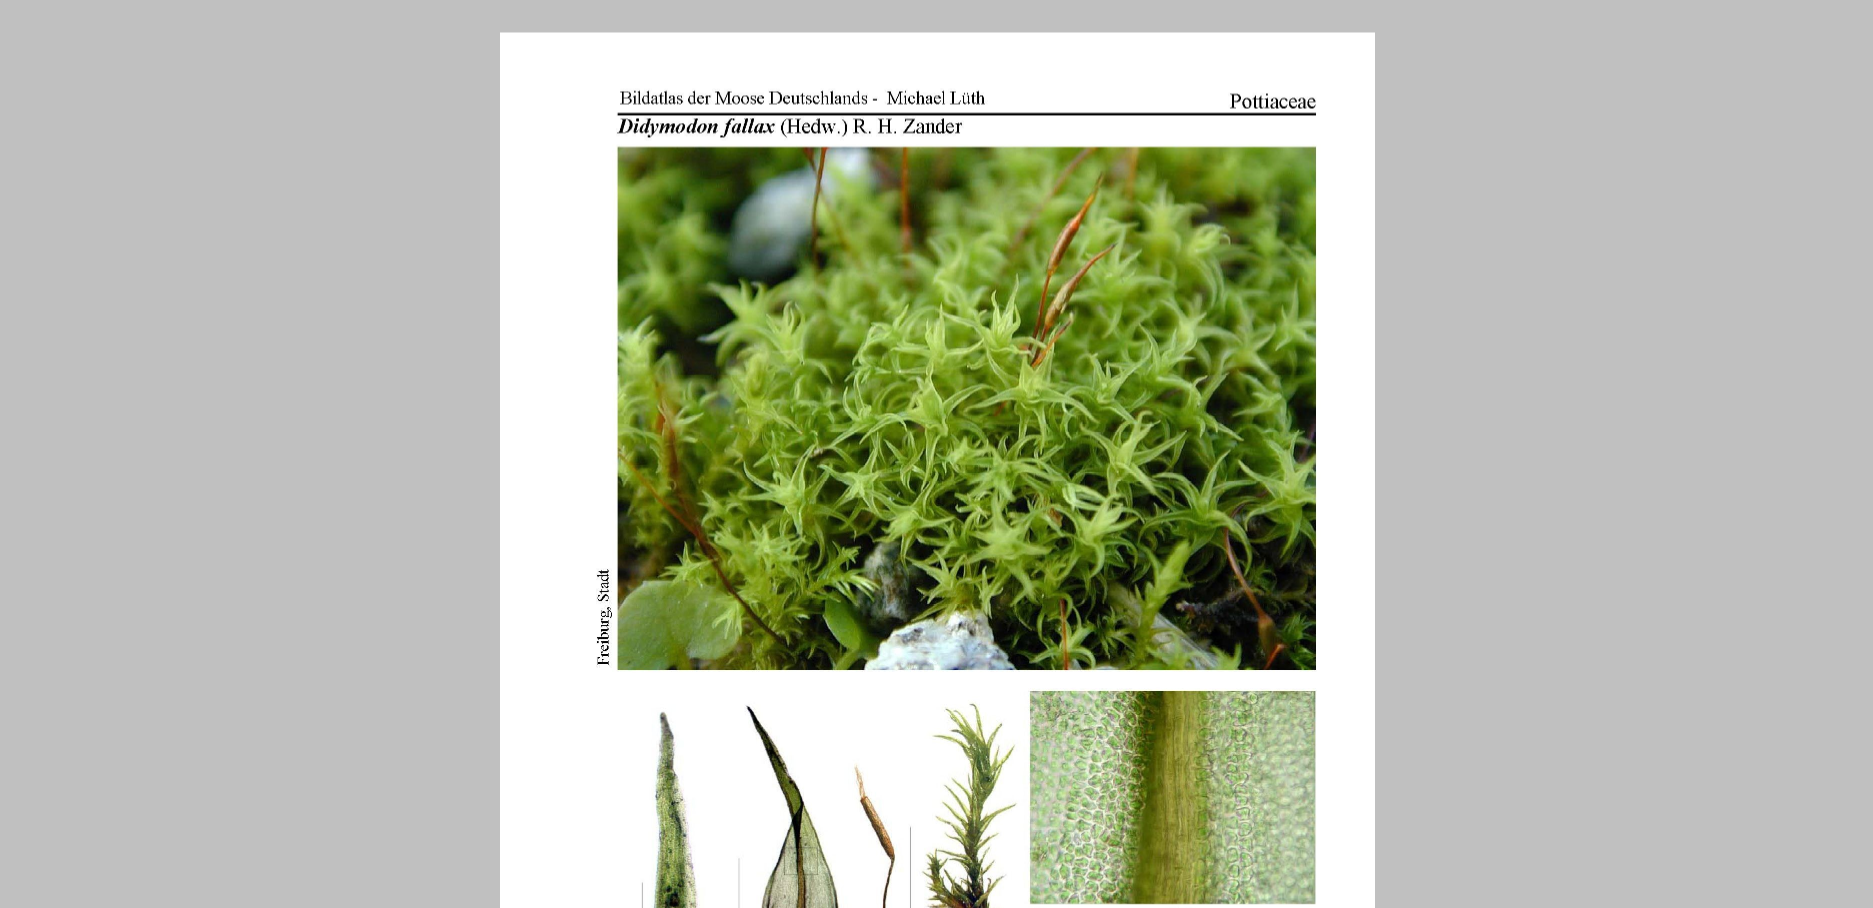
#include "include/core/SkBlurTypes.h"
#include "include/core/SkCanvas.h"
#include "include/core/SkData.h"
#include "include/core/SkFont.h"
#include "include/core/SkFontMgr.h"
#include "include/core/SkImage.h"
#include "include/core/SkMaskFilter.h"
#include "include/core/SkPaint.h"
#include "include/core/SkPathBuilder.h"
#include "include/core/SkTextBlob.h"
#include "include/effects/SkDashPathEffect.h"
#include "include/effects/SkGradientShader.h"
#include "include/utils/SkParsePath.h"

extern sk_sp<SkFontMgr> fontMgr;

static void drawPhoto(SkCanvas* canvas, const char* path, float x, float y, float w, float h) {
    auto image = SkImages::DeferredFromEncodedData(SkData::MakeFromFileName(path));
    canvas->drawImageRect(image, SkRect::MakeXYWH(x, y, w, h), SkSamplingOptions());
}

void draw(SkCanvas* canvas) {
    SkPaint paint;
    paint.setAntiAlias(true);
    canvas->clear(0xFFC0C0C0);
    drawPhoto(canvas, "assets/img1.png", 500, 32, 875, 876);
}
